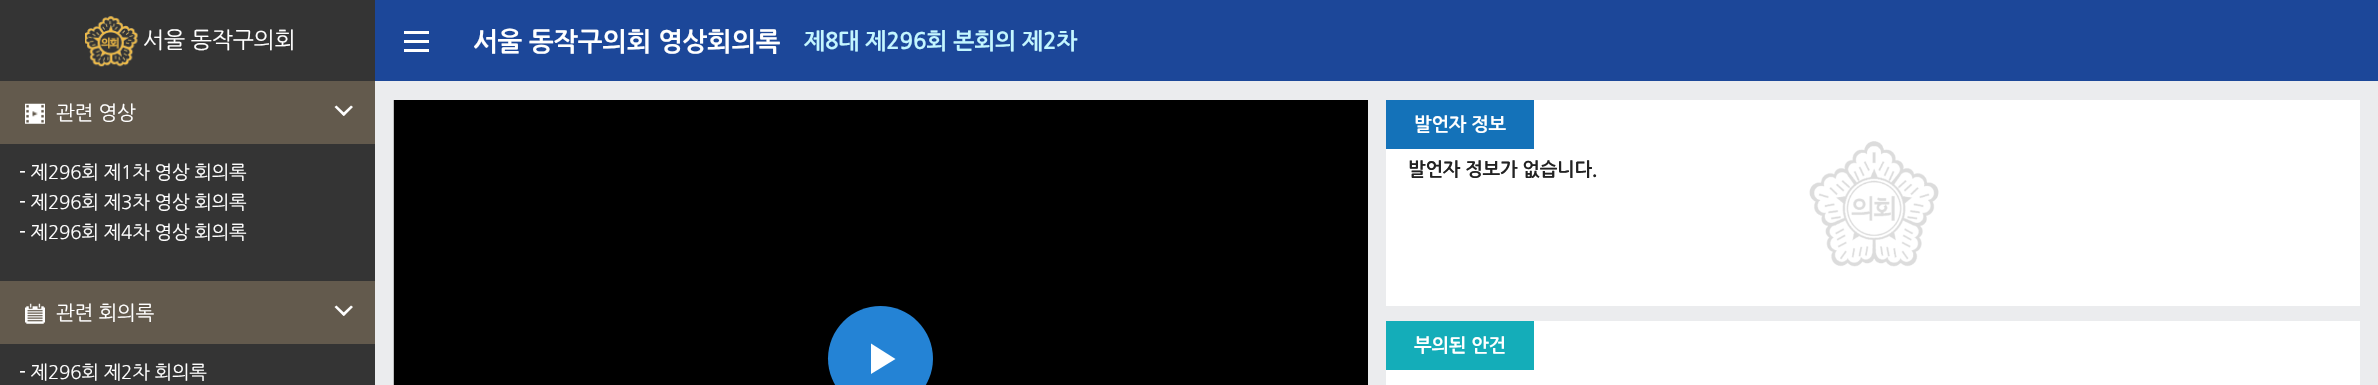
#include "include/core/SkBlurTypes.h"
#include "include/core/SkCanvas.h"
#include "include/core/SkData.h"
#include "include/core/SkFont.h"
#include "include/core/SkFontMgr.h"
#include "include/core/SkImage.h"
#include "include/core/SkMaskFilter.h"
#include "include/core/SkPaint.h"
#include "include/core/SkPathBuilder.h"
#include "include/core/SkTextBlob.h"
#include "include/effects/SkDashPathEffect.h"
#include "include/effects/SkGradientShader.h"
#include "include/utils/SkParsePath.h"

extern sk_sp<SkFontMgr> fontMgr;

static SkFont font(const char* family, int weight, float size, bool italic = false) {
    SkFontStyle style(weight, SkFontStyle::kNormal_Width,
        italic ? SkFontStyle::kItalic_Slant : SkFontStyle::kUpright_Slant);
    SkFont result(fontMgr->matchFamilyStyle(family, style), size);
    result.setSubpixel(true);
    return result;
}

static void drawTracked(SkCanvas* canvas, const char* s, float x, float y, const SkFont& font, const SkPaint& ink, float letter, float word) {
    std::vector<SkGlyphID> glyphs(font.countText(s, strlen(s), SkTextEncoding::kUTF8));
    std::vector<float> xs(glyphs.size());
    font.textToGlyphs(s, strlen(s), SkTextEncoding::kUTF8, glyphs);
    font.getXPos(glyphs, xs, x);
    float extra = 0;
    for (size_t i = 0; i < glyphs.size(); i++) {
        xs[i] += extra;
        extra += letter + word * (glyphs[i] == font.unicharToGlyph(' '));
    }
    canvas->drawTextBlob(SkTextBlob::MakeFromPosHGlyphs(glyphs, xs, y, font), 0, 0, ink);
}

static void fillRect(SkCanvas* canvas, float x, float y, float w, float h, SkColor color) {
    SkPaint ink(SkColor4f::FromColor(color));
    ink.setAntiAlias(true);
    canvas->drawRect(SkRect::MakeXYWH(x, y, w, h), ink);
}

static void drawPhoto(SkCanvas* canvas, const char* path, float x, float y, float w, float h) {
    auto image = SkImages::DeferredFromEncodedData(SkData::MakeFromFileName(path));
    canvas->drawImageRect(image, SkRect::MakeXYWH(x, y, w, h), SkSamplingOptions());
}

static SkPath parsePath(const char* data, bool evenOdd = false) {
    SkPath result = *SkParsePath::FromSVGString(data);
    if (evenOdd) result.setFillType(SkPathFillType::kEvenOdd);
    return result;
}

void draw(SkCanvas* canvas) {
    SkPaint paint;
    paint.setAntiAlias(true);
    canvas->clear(0xFFEBECEE);
    fillRect(canvas, 0, 0, 375, 385, 0xFF343434);
    drawPhoto(canvas, "assets/img1.png", 85, 16, 53, 51);
    SkFont font1 = font("NanumGothic", 400, 22.5f);
    paint.setColor(0xFFFFFFFF);
    drawTracked(canvas, "서울 동작구의회", 143, 48, font1, paint, -0.25f, 0);
    fillRect(canvas, 0, 81, 375, 63, 0xFF635A4D);
    drawPhoto(canvas, "assets/img2.png", 25, 103, 20, 21);
    SkFont font2 = font("NanumGothic", 400, 20);
    drawTracked(canvas, "관련 영상", 56, 120, font2, paint, -0.25f, 0);
    canvas->drawPath(parsePath("M336.5 105.5L345.5 114L343.5 116L334.5 107Z"), paint);
    canvas->drawPath(parsePath("M342 114L351 105.5L353 107L344 116Z"), paint);
    SkFont font3 = font("NanumGothic", 400, 18.75f);
    drawTracked(canvas, "- 제296회 제1차 영상 회의록", 19, 179, font3, paint, -0.25f, 0);
    drawTracked(canvas, "- 제296회 제3차 영상 회의록", 19, 209, font3, paint, -0.25f, 0);
    drawTracked(canvas, "- 제296회 제4차 영상 회의록", 19, 239, font3, paint, -0.25f, 0);
    fillRect(canvas, 0, 281, 375, 63, 0xFF635A4D);
    drawPhoto(canvas, "assets/img3.png", 25, 303, 20, 21);
    drawTracked(canvas, "관련 회의록", 56, 320, font2, paint, -0.25f, 0);
    canvas->drawPath(parsePath("M336.5 305.5L345.5 314L343.5 316L334.5 307Z"), paint);
    canvas->drawPath(parsePath("M342 314L351 305.5L353 307L344 316Z"), paint);
    drawTracked(canvas, "- 제296회 제2차 회의록", 19, 379, font3, paint, -0.25f, 0);
    fillRect(canvas, 375, 0, 2003, 81, 0xFF1C4799);
    fillRect(canvas, 404, 31, 25, 3, 0xFFFFFFFF);
    fillRect(canvas, 404, 40, 25, 3, 0xFFFFFFFF);
    fillRect(canvas, 404, 49, 25, 3, 0xFFFFFFFF);
    SkFont font4 = font("NanumGothic", 700, 26.25f);
    drawTracked(canvas, "서울 동작구의회 영상회의록", 473, 51, font4, paint, -0.25f, 0);
    SkFont font5 = font("NanumGothic", 700, 22.5f);
    paint.setColor(0xFFC3F6FF);
    drawTracked(canvas, "제8대 제296회 본회의 제2차", 804, 49, font5, paint, -0.25f, 0);
    drawPhoto(canvas, "assets/img4.png", 393, 100, 1, 285);
    fillRect(canvas, 394, 100, 974, 285, 0xFF000000);
    paint.setColor(0xFF2483D5);
    canvas->drawCircle(880.5f, 358.5f, 52.5f, paint);
    paint.setColor(0xFFFFFFFF);
    canvas->drawPath(parsePath("M871 343.5V374L895.5 359Z"), paint);
    fillRect(canvas, 1386, 100, 974, 206, 0xFFFFFFFF);
    drawPhoto(canvas, "assets/img5.png", 1809, 141, 130, 126);
    fillRect(canvas, 1386, 100, 148, 49, 0xFF1472B9);
    SkFont font6 = font("NanumGothic", 700, 18.75f);
    drawTracked(canvas, "발언자 정보", 1414, 131, font6, paint, -0.25f, 0);
    paint.setColor(0xFF222222);
    drawTracked(canvas, "발언자 정보가 없습니다.", 1408, 176, font6, paint, -0.25f, 0);
    fillRect(canvas, 1386, 321, 974, 64, 0xFFFFFFFF);
    fillRect(canvas, 1386, 321, 148, 49, 0xFF14ADB9);
    paint.setColor(0xFFFFFFFF);
    drawTracked(canvas, "부의된 안건", 1414, 352, font6, paint, -0.25f, 0);
}
